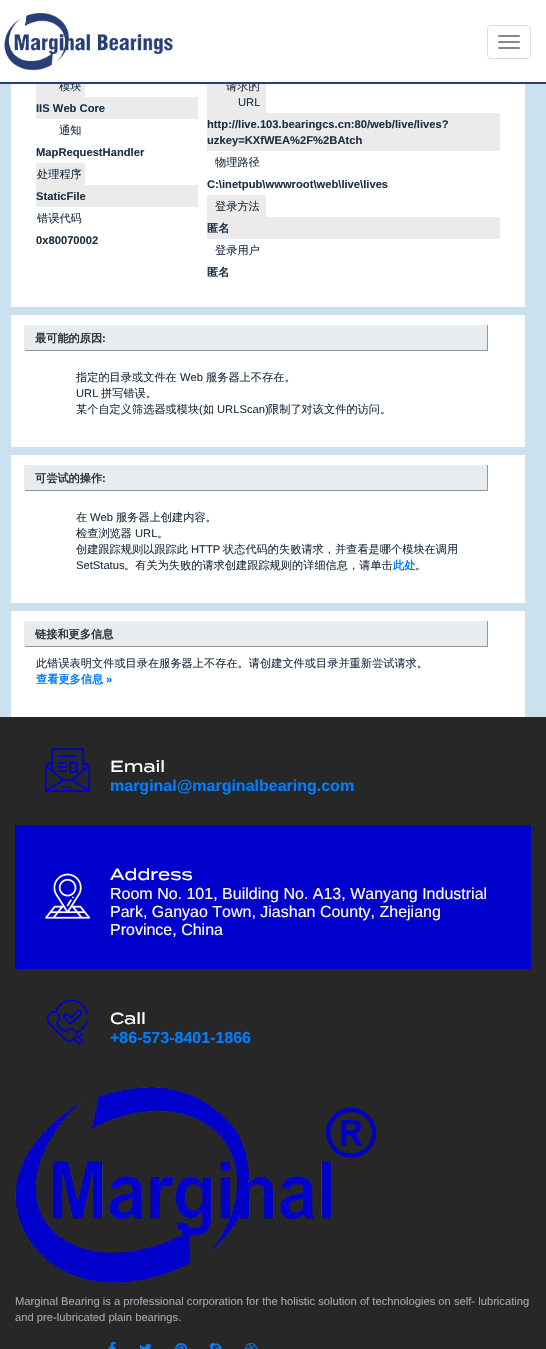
#include "include/core/SkBlurTypes.h"
#include "include/core/SkCanvas.h"
#include "include/core/SkData.h"
#include "include/core/SkFont.h"
#include "include/core/SkFontMgr.h"
#include "include/core/SkImage.h"
#include "include/core/SkMaskFilter.h"
#include "include/core/SkPaint.h"
#include "include/core/SkPathBuilder.h"
#include "include/core/SkTextBlob.h"
#include "include/effects/SkDashPathEffect.h"
#include "include/effects/SkGradientShader.h"
#include "include/utils/SkParsePath.h"

extern sk_sp<SkFontMgr> fontMgr;

static SkFont font(const char* family, int weight, float size, bool italic = false) {
    SkFontStyle style(weight, SkFontStyle::kNormal_Width,
        italic ? SkFontStyle::kItalic_Slant : SkFontStyle::kUpright_Slant);
    SkFont result(fontMgr->matchFamilyStyle(family, style), size);
    result.setSubpixel(true);
    return result;
}

static void drawLabel(SkCanvas* canvas, const char* s, float x, float y, const SkFont& font, SkColor color) {
    SkPaint ink(SkColor4f::FromColor(color));
    ink.setAntiAlias(true);
    canvas->drawString(s, x, y, font, ink);
}

static void fillRect(SkCanvas* canvas, float x, float y, float w, float h, SkColor color) {
    SkPaint ink(SkColor4f::FromColor(color));
    ink.setAntiAlias(true);
    canvas->drawRect(SkRect::MakeXYWH(x, y, w, h), ink);
}

static void fillRRect(SkCanvas* canvas, float x, float y, float w, float h, float radius, SkColor color) {
    SkPaint ink(SkColor4f::FromColor(color));
    ink.setAntiAlias(true);
    canvas->drawRoundRect(SkRect::MakeXYWH(x, y, w, h), radius, radius, ink);
}

static void drawPhoto(SkCanvas* canvas, const char* path, float x, float y, float w, float h) {
    auto image = SkImages::DeferredFromEncodedData(SkData::MakeFromFileName(path));
    canvas->drawImageRect(image, SkRect::MakeXYWH(x, y, w, h), SkSamplingOptions());
}

void draw(SkCanvas* canvas) {
    SkPaint paint;
    paint.setAntiAlias(true);
    canvas->clear(0xFFCBE1EF);
    fillRect(canvas, 11, 84, 514, 223, 0xFFFFFFFF);
    fillRect(canvas, 36, 84, 49, 13, 0xFFEBEBEB);
    SkFont font1 = font("WenQuanYi Zen Hei", 500, 11.2f);
    drawLabel(canvas, "模块", 59, 90, font1, 0xFF1F3044);
    fillRect(canvas, 207, 84, 59, 29, 0xFFEBEBEB);
    drawLabel(canvas, "请求的", 226, 90, font1, 0xFF1F3044);
    fillRect(canvas, 0, 0, 546, 82, 0xFFFFFFFF);
    fillRect(canvas, 0, 82, 546, 2, 0xFF293E77);
    drawPhoto(canvas, "assets/img1.png", 4, 13, 169, 58);
    paint.setStroke(true);
    paint.setStrokeWidth(1);
    paint.setColor(0xFFDDDDDD);
    canvas->drawRoundRect(SkRect::MakeXYWH(487.5f, 25.5f, 43, 33), 3.5f, 3.5f, paint);
    fillRRect(canvas, 498, 35, 22, 2, 1, 0xFF888888);
    fillRRect(canvas, 498, 41, 22, 2, 1, 0xFF888888);
    fillRRect(canvas, 498, 47, 22, 2, 1, 0xFF888888);
    fillRect(canvas, 36, 97, 162, 22, 0xFFEBEBEB);
    SkFont font2 = font("Liberation Sans", 700, 11.2f);
    drawLabel(canvas, "IIS Web Core", 36, 112, font2, 0xFF1F3044);
    drawLabel(canvas, "通知", 59, 134, font1, 0xFF1F3044);
    drawLabel(canvas, "MapRequestHandler", 36, 156, font2, 0xFF1F3044);
    fillRect(canvas, 36, 163, 49, 22, 0xFFEBEBEB);
    drawLabel(canvas, "处理程序", 37, 178, font1, 0xFF1F3044);
    fillRect(canvas, 36, 185, 162, 22, 0xFFEBEBEB);
    drawLabel(canvas, "StaticFile", 36, 200, font2, 0xFF1F3044);
    drawLabel(canvas, "错误代码", 37, 222, font1, 0xFF1F3044);
    drawLabel(canvas, "0x80070002", 36, 244, font2, 0xFF1F3044);
    SkFont font3 = font("Liberation Sans", 400, 11.2f);
    drawLabel(canvas, "URL", 238, 106, font3, 0xFF1F3044);
    fillRect(canvas, 207, 113, 293, 38, 0xFFEBEBEB);
    drawLabel(canvas, "http://live.103.bearingcs.cn:80/web/live/lives?", 207, 128, font2, 0xFF1F3044);
    drawLabel(canvas, "uzkey=KXfWEA%2F%2BAtch", 207, 144, font2, 0xFF1F3044);
    drawLabel(canvas, "物理路径", 215, 166, font1, 0xFF1F3044);
    drawLabel(canvas, "C:\\inetpub\\wwwroot\\web\\live\\lives", 207, 188, font2, 0xFF1F3044);
    fillRect(canvas, 207, 195, 59, 22, 0xFFEBEBEB);
    drawLabel(canvas, "登录方法", 215, 210, font1, 0xFF1F3044);
    fillRect(canvas, 207, 217, 293, 22, 0xFFEBEBEB);
    SkFont font4 = font("WenQuanYi Zen Hei", 700, 11.2f);
    drawLabel(canvas, "匿名", 207, 232, font4, 0xFF1F3044);
    drawLabel(canvas, "登录用户", 215, 254, font1, 0xFF1F3044);
    drawLabel(canvas, "匿名", 207, 276, font4, 0xFF1F3044);
    fillRect(canvas, 11, 315, 514, 132, 0xFFFFFFFF);
    fillRect(canvas, 25, 326, 462, 24, 0xFFE7ECF0);
    fillRect(canvas, 24, 325, 464, 1, 0xFFEDEDED);
    fillRect(canvas, 487, 325, 1, 26, 0xFF969696);
    fillRect(canvas, 24, 350, 464, 1, 0xFF969696);
    fillRect(canvas, 24, 325, 1, 26, 0xFFEDEDED);
    drawLabel(canvas, "最可能的原因", 35, 342, font4, 0xFF333333);
    drawLabel(canvas, ":", 102, 342, font2, 0xFF333333);
    drawLabel(canvas, "指定的目录或文件在", 76, 381, font1, 0xFF1F3044);
    drawLabel(canvas, "Web", 180, 381, font3, 0xFF1F3044);
    drawLabel(canvas, "服务器上不存在。", 206, 381, font1, 0xFF1F3044);
    drawLabel(canvas, "URL", 76, 397, font3, 0xFF1F3044);
    drawLabel(canvas, "拼写错误。", 101, 397, font1, 0xFF1F3044);
    drawLabel(canvas, "某个自定义筛选器或模块", 76, 413, font1, 0xFF1F3044);
    drawLabel(canvas, "(", 199, 413, font3, 0xFF1F3044);
    drawLabel(canvas, "如", 203, 413, font1, 0xFF1F3044);
    drawLabel(canvas, "URLScan)", 217, 413, font3, 0xFF1F3044);
    drawLabel(canvas, "限制了对该文件的访问。", 268, 413, font1, 0xFF1F3044);
    fillRect(canvas, 11, 455, 514, 148, 0xFFFFFFFF);
    fillRect(canvas, 25, 466, 462, 24, 0xFFE7ECF0);
    fillRect(canvas, 24, 465, 464, 1, 0xFFEDEDED);
    fillRect(canvas, 487, 465, 1, 26, 0xFF969696);
    fillRect(canvas, 24, 490, 464, 1, 0xFF969696);
    fillRect(canvas, 24, 465, 1, 26, 0xFFEDEDED);
    drawLabel(canvas, "可尝试的操作", 35, 482, font4, 0xFF333333);
    drawLabel(canvas, ":", 102, 482, font2, 0xFF333333);
    drawLabel(canvas, "在", 76, 521, font1, 0xFF1F3044);
    drawLabel(canvas, "Web", 90, 521, font3, 0xFF1F3044);
    drawLabel(canvas, "服务器上创建内容。", 116, 521, font1, 0xFF1F3044);
    drawLabel(canvas, "检查浏览器", 76, 537, font1, 0xFF1F3044);
    drawLabel(canvas, "URL", 135, 537, font3, 0xFF1F3044);
    drawLabel(canvas, "。", 157, 537, font1, 0xFF1F3044);
    drawLabel(canvas, "创建跟踪规则以跟踪此", 76, 553, font1, 0xFF1F3044);
    drawLabel(canvas, "HTTP", 191, 553, font3, 0xFF1F3044);
    drawLabel(canvas, "状态代码的失败请求，并查看是哪个模块在调用", 223, 553, font1, 0xFF1F3044);
    drawLabel(canvas, "SetStatus", 76, 569, font3, 0xFF1F3044);
    drawLabel(canvas, "。有关为失败的请求创建跟踪规则的详细信息，请单击", 124, 569, font1, 0xFF1F3044);
    drawLabel(canvas, "此处", 393, 569, font4, 0xFF007EFF);
    drawLabel(canvas, "。", 415, 569, font1, 0xFF1F3044);
    fillRect(canvas, 11, 611, 514, 106, 0xFFFFFFFF);
    fillRect(canvas, 25, 622, 462, 24, 0xFFE7ECF0);
    fillRect(canvas, 24, 621, 464, 1, 0xFFEDEDED);
    fillRect(canvas, 487, 621, 1, 26, 0xFF969696);
    fillRect(canvas, 24, 646, 464, 1, 0xFF969696);
    fillRect(canvas, 24, 621, 1, 26, 0xFFEDEDED);
    drawLabel(canvas, "链接和更多信息", 35, 638, font4, 0xFF333333);
    drawLabel(canvas, "此错误表明文件或目录在服务器上不存在。请创建文件或目录并重新尝试请求。", 36, 667, font1, 0xFF1F3044);
    drawLabel(canvas, "查看更多信息", 36, 683, font4, 0xFF007EFF);
    drawLabel(canvas, "»", 106, 683, font2, 0xFF007EFF);
    fillRect(canvas, 0, 717, 546, 632, 0xFF272727);
    drawPhoto(canvas, "assets/img2.png", 45, 748, 46, 44);
    SkFont font5 = font("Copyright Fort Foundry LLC", 500, 16);
    drawLabel(canvas, "Email", 110, 772, font5, 0xFFFFFFFF);
    SkFont font6 = font("Liberation Sans", 700, 16);
    drawLabel(canvas, "marginal@marginalbearing.com", 110, 791, font6, 0xFF007EFF);
    fillRect(canvas, 15, 825, 516, 144, 0xFF0000CC);
    drawPhoto(canvas, "assets/img3.png", 45, 873, 46, 46);
    drawLabel(canvas, "Address", 110, 880, font5, 0xFFFFFFFF);
    SkFont font7 = font("Liberation Sans", 400, 16);
    drawLabel(canvas, "Room No. 101, Building No. A13, Wanyang Industrial", 110, 899, font7, 0xFFFFFFFF);
    drawLabel(canvas, "Park, Ganyao Town, Jiashan County, Zhejiang", 110, 917, font7, 0xFFFFFFFF);
    drawLabel(canvas, "Province, China", 110, 935, font7, 0xFFFFFFFF);
    drawPhoto(canvas, "assets/img4.png", 46, 999, 43, 46);
    drawLabel(canvas, "Call", 110, 1024, font5, 0xFFFFFFFF);
    drawLabel(canvas, "+86-573-8401-1866", 110, 1043, font6, 0xFF007EFF);
    drawPhoto(canvas, "assets/img5.png", 15, 1087, 361, 196);
    drawLabel(canvas, "Marginal Bearing is a professional corporation for the holistic solution of technologies on self- lubricating", 15, 1305, font3, 0xFFA7A7A7);
    drawLabel(canvas, "and pre-lubricated plain bearings.", 15, 1321, font3, 0xFFA7A7A7);
    drawPhoto(canvas, "assets/img6.png", 108, 1342, 8, 7);
    drawPhoto(canvas, "assets/img7.png", 139, 1344, 13, 5);
    drawPhoto(canvas, "assets/img8.png", 175, 1343, 12, 6);
    drawPhoto(canvas, "assets/img9.png", 210, 1343, 12, 6);
    drawPhoto(canvas, "assets/img10.png", 245, 1343, 12, 6);
}
